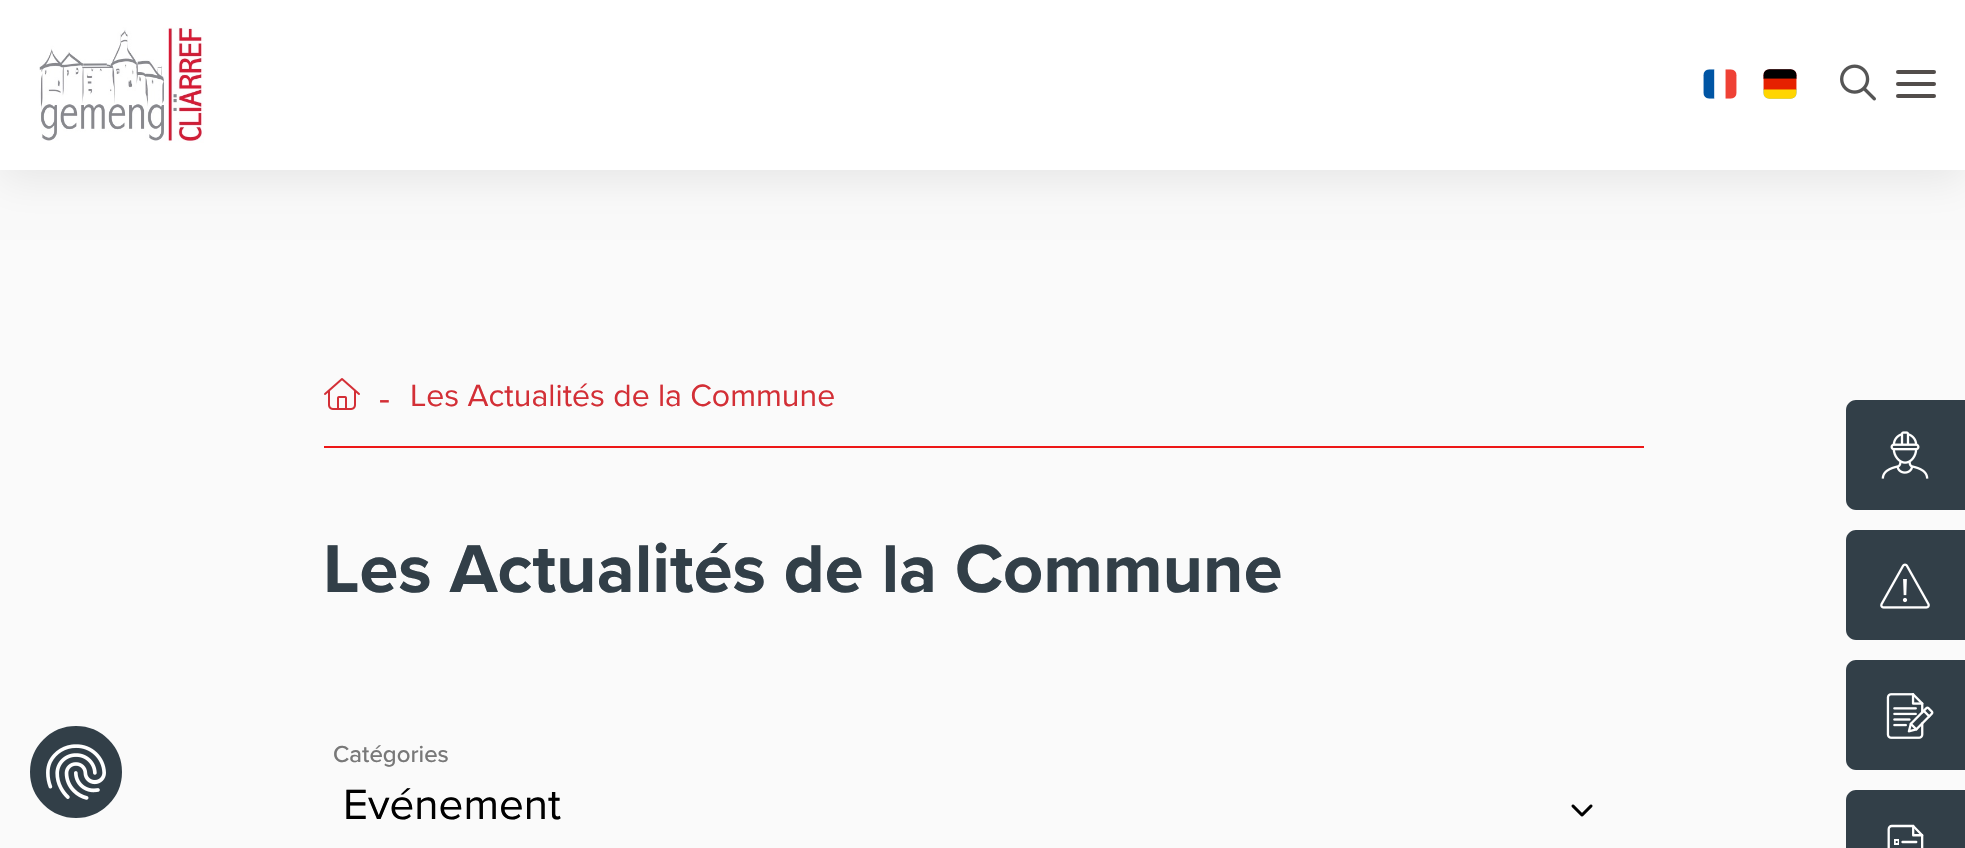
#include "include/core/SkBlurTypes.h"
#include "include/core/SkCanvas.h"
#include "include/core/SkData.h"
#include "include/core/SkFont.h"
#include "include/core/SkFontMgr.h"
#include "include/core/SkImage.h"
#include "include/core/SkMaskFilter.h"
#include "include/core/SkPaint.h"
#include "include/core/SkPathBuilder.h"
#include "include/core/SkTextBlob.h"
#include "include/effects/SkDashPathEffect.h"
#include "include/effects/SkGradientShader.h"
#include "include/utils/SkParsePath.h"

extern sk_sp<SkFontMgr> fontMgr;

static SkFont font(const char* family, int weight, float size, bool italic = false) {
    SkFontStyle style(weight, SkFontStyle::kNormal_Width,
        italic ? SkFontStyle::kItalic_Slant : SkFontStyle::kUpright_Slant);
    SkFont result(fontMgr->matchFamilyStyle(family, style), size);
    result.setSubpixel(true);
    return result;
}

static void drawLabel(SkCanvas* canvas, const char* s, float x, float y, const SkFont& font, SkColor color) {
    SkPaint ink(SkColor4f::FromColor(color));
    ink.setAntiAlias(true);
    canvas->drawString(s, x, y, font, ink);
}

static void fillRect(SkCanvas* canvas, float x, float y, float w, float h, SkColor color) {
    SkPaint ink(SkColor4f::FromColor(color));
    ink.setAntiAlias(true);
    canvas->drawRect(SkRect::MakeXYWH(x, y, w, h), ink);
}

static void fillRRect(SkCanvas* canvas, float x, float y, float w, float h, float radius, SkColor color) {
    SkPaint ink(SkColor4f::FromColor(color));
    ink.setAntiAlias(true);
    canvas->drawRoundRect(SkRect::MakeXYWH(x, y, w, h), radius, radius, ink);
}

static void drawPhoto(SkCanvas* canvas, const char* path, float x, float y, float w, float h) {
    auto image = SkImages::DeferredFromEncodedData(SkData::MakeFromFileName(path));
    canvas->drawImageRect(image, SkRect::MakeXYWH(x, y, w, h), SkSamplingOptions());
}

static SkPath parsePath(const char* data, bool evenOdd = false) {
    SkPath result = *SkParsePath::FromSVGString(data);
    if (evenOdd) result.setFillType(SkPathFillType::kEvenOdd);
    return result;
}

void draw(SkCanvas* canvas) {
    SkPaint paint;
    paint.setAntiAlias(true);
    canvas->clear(0xFFFAFAFA);
    paint.setColor(0xFF323F48);
    canvas->drawCircle(76, 772, 45, paint);
    paint.setStroke(true);
    paint.setStrokeWidth(2);
    canvas->drawCircle(76, 772, 45, paint);
    drawPhoto(canvas, "assets/img1.png", 46, 744, 60, 56);
    paint.setStroke(false);
    paint.setColor(0x14000000);
    paint.setMaskFilter(SkMaskFilter::MakeBlur(kNormal_SkBlurStyle, 20));
    canvas->drawRect(SkRect::MakeXYWH(0, 10, 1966, 170), paint);
    paint.setMaskFilter(nullptr);
    fillRect(canvas, 0, 0, 1965, 170, 0xFFFFFFFF);
    drawPhoto(canvas, "assets/img2.png", 39, 27, 165, 116);
    drawPhoto(canvas, "assets/img3.png", 1703, 69, 34, 30);
    drawPhoto(canvas, "assets/img4.png", 1763, 69, 34, 30);
    drawPhoto(canvas, "assets/img5.png", 1840, 64, 36, 37);
    fillRRect(canvas, 1896, 70, 40, 4, 2, 0xFF524D4B);
    fillRRect(canvas, 1896, 82, 40, 4, 2, 0xFF524D4B);
    fillRRect(canvas, 1896, 94, 40, 4, 2, 0xFF524D4B);
    fillRect(canvas, 324, 446, 1320, 2, 0xFFED1717);
    drawPhoto(canvas, "assets/img6.png", 324, 378, 36, 32);
    SkFont font1 = font("Proxima Nova", 400, 36);
    drawLabel(canvas, "-", 379, 410, font1, 0xFFD32F36);
    SkFont font2 = font("Proxima Nova", 400, 32);
    drawLabel(canvas, "Les Actualités de la Commune", 410, 406, font2, 0xFFD32F36);
    SkFont font3 = font("Proxima Nova", 700, 70);
    drawLabel(canvas, "Les Actualités de la Commune", 323, 592, font3, 0xFF323F48);
    SkFont font4 = font("Proxima Nova", 500, 24);
    drawLabel(canvas, "Catégories", 333, 762, font4, 0xFF787878);
    SkFont font5 = font("Proxima Nova", 400, 44);
    drawLabel(canvas, "Evénement", 343, 819, font5, 0xFF000000);
    drawPhoto(canvas, "assets/img7.png", 1571, 804, 22, 13);
    paint.setColor(0xFF323F48);
    canvas->drawPath(parsePath("M1856 400H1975V510H1856C1850.5 510 1846 505.5 1846 500V410C1846 404.5 1850.5 400 1856 400Z"), paint);
    drawPhoto(canvas, "assets/img8.png", 1881, 431, 48, 48);
    canvas->drawPath(parsePath("M1856 530H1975V640H1856C1850.5 640 1846 635.5 1846 630V540C1846 534.5 1850.5 530 1856 530Z"), paint);
    drawPhoto(canvas, "assets/img9.png", 1880, 563, 50, 46);
    canvas->drawPath(parsePath("M1856 660H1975V770H1856C1850.5 770 1846 765.5 1846 760V670C1846 664.5 1850.5 660 1856 660Z"), paint);
    drawPhoto(canvas, "assets/img10.png", 1886, 693, 48, 46);
    canvas->drawPath(parsePath("M1856 790H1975V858H1856C1850.5 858 1846 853.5 1846 848V800C1846 794.5 1850.5 790 1856 790Z"), paint);
    drawPhoto(canvas, "assets/img11.png", 1887, 824, 37, 24);
}
